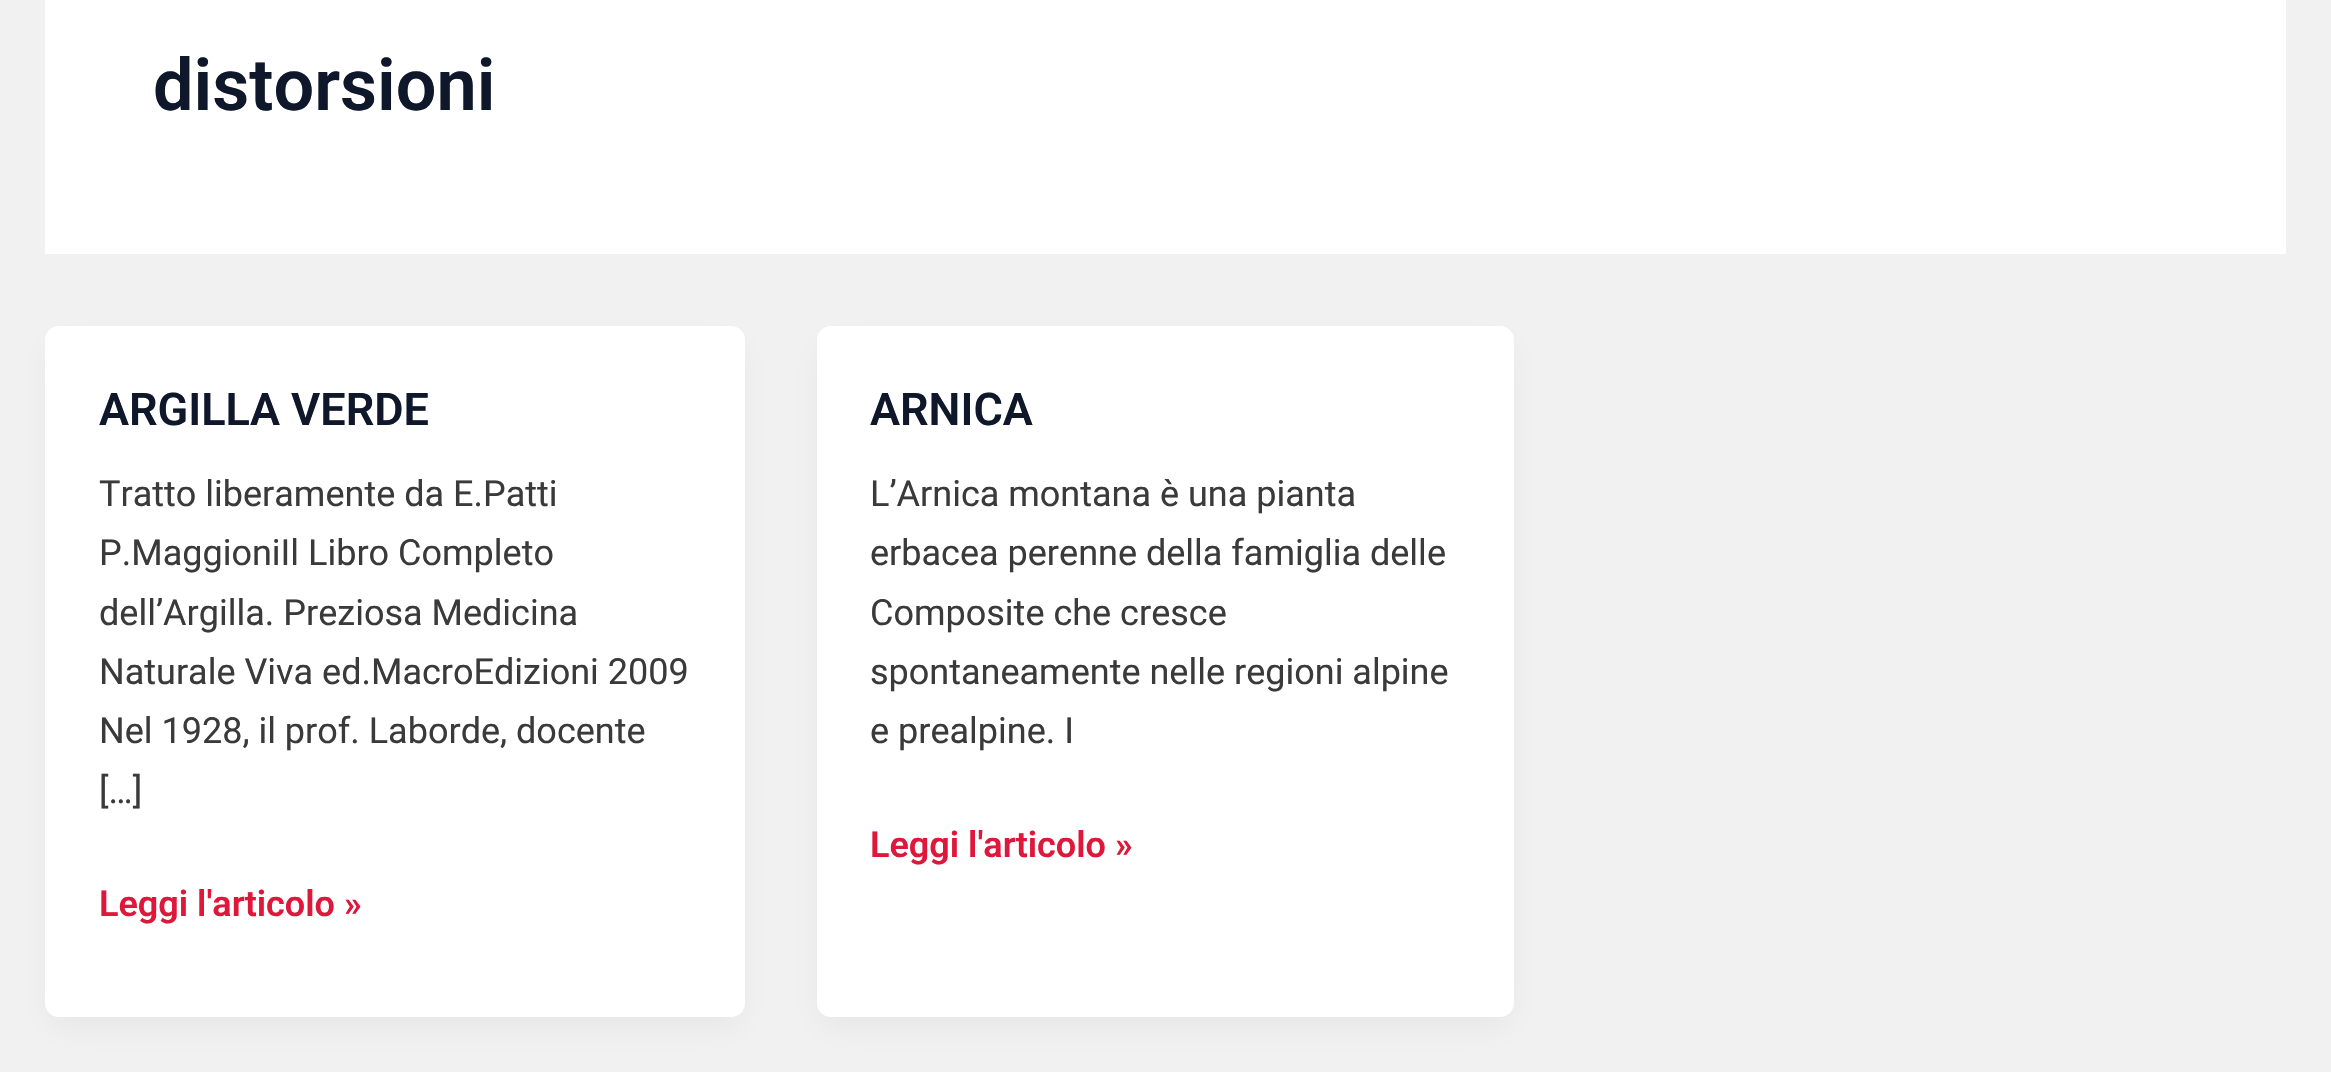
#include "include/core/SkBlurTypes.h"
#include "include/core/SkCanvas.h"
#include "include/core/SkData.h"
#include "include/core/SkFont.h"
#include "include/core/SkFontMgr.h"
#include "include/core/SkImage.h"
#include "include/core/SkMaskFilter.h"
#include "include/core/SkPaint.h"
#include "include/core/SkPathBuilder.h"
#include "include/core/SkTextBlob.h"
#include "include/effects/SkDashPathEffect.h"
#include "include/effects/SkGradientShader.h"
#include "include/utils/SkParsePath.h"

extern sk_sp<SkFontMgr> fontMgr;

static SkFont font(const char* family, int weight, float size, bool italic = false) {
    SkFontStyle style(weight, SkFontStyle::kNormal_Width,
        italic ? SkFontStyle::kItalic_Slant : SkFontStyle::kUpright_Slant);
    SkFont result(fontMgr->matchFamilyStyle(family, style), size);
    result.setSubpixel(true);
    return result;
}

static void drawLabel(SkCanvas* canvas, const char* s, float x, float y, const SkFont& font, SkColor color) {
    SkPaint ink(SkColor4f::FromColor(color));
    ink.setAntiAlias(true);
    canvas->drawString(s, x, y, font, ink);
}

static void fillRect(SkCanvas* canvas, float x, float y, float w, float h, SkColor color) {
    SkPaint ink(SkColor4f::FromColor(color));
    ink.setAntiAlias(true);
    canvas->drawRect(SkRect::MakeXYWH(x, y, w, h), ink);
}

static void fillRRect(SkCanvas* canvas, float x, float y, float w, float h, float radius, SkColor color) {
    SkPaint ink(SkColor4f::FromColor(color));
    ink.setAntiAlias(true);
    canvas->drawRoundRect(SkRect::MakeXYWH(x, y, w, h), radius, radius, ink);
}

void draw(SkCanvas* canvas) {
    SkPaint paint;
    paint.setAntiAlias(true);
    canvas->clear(0xFFF1F1F1);
    fillRect(canvas, 45, 0, 2241, 254, 0xFFFFFFFF);
    SkFont font1 = font("Roboto", 600, 72);
    drawLabel(canvas, "distorsioni", 153, 110, font1, 0xFF0F172A);
    paint.setColor(0x0D101828);
    paint.setMaskFilter(SkMaskFilter::MakeBlur(kNormal_SkBlurStyle, 17));
    canvas->drawRoundRect(SkRect::MakeXYWH(50, 344, 690, 682), 9, 9, paint);
    paint.setMaskFilter(nullptr);
    fillRRect(canvas, 45, 326, 700, 691, 14, 0xFFFFFFFF);
    SkFont font2 = font("Roboto", 600, 45);
    drawLabel(canvas, "ARGILLA VERDE", 99, 425, font2, 0xFF0F172A);
    SkFont font3 = font("Roboto", 400, 36);
    drawLabel(canvas, "Tratto liberamente da E.Patti", 99, 506, font3, 0xFF3A3A3A);
    drawLabel(canvas, "P.MaggioniIl Libro Completo", 99, 565, font3, 0xFF3A3A3A);
    drawLabel(canvas, "dell’Argilla. Preziosa Medicina", 99, 625, font3, 0xFF3A3A3A);
    drawLabel(canvas, "Naturale Viva ed.MacroEdizioni 2009", 99, 684, font3, 0xFF3A3A3A);
    drawLabel(canvas, "Nel 1928, il prof. Laborde, docente", 99, 743, font3, 0xFF3A3A3A);
    drawLabel(canvas, "[…]", 99, 803, font3, 0xFF3A3A3A);
    SkFont font4 = font("Roboto", 600, 36);
    drawLabel(canvas, "Leggi l'articolo »", 99, 916, font4, 0xFFDD183B);
    paint.setMaskFilter(SkMaskFilter::MakeBlur(kNormal_SkBlurStyle, 17));
    canvas->drawRoundRect(SkRect::MakeXYWH(821, 344, 689, 682), 9, 9, paint);
    paint.setMaskFilter(nullptr);
    fillRRect(canvas, 817, 326, 697, 691, 14, 0xFFFFFFFF);
    drawLabel(canvas, "ARNICA", 870, 425, font2, 0xFF0F172A);
    drawLabel(canvas, "L’Arnica montana è una pianta", 870, 506, font3, 0xFF3A3A3A);
    drawLabel(canvas, "erbacea perenne della famiglia delle", 870, 565, font3, 0xFF3A3A3A);
    drawLabel(canvas, "Composite che cresce", 870, 625, font3, 0xFF3A3A3A);
    drawLabel(canvas, "spontaneamente nelle regioni alpine", 870, 684, font3, 0xFF3A3A3A);
    drawLabel(canvas, "e prealpine. I", 870, 743, font3, 0xFF3A3A3A);
    drawLabel(canvas, "Leggi l'articolo »", 870, 857, font4, 0xFFDD183B);
}
